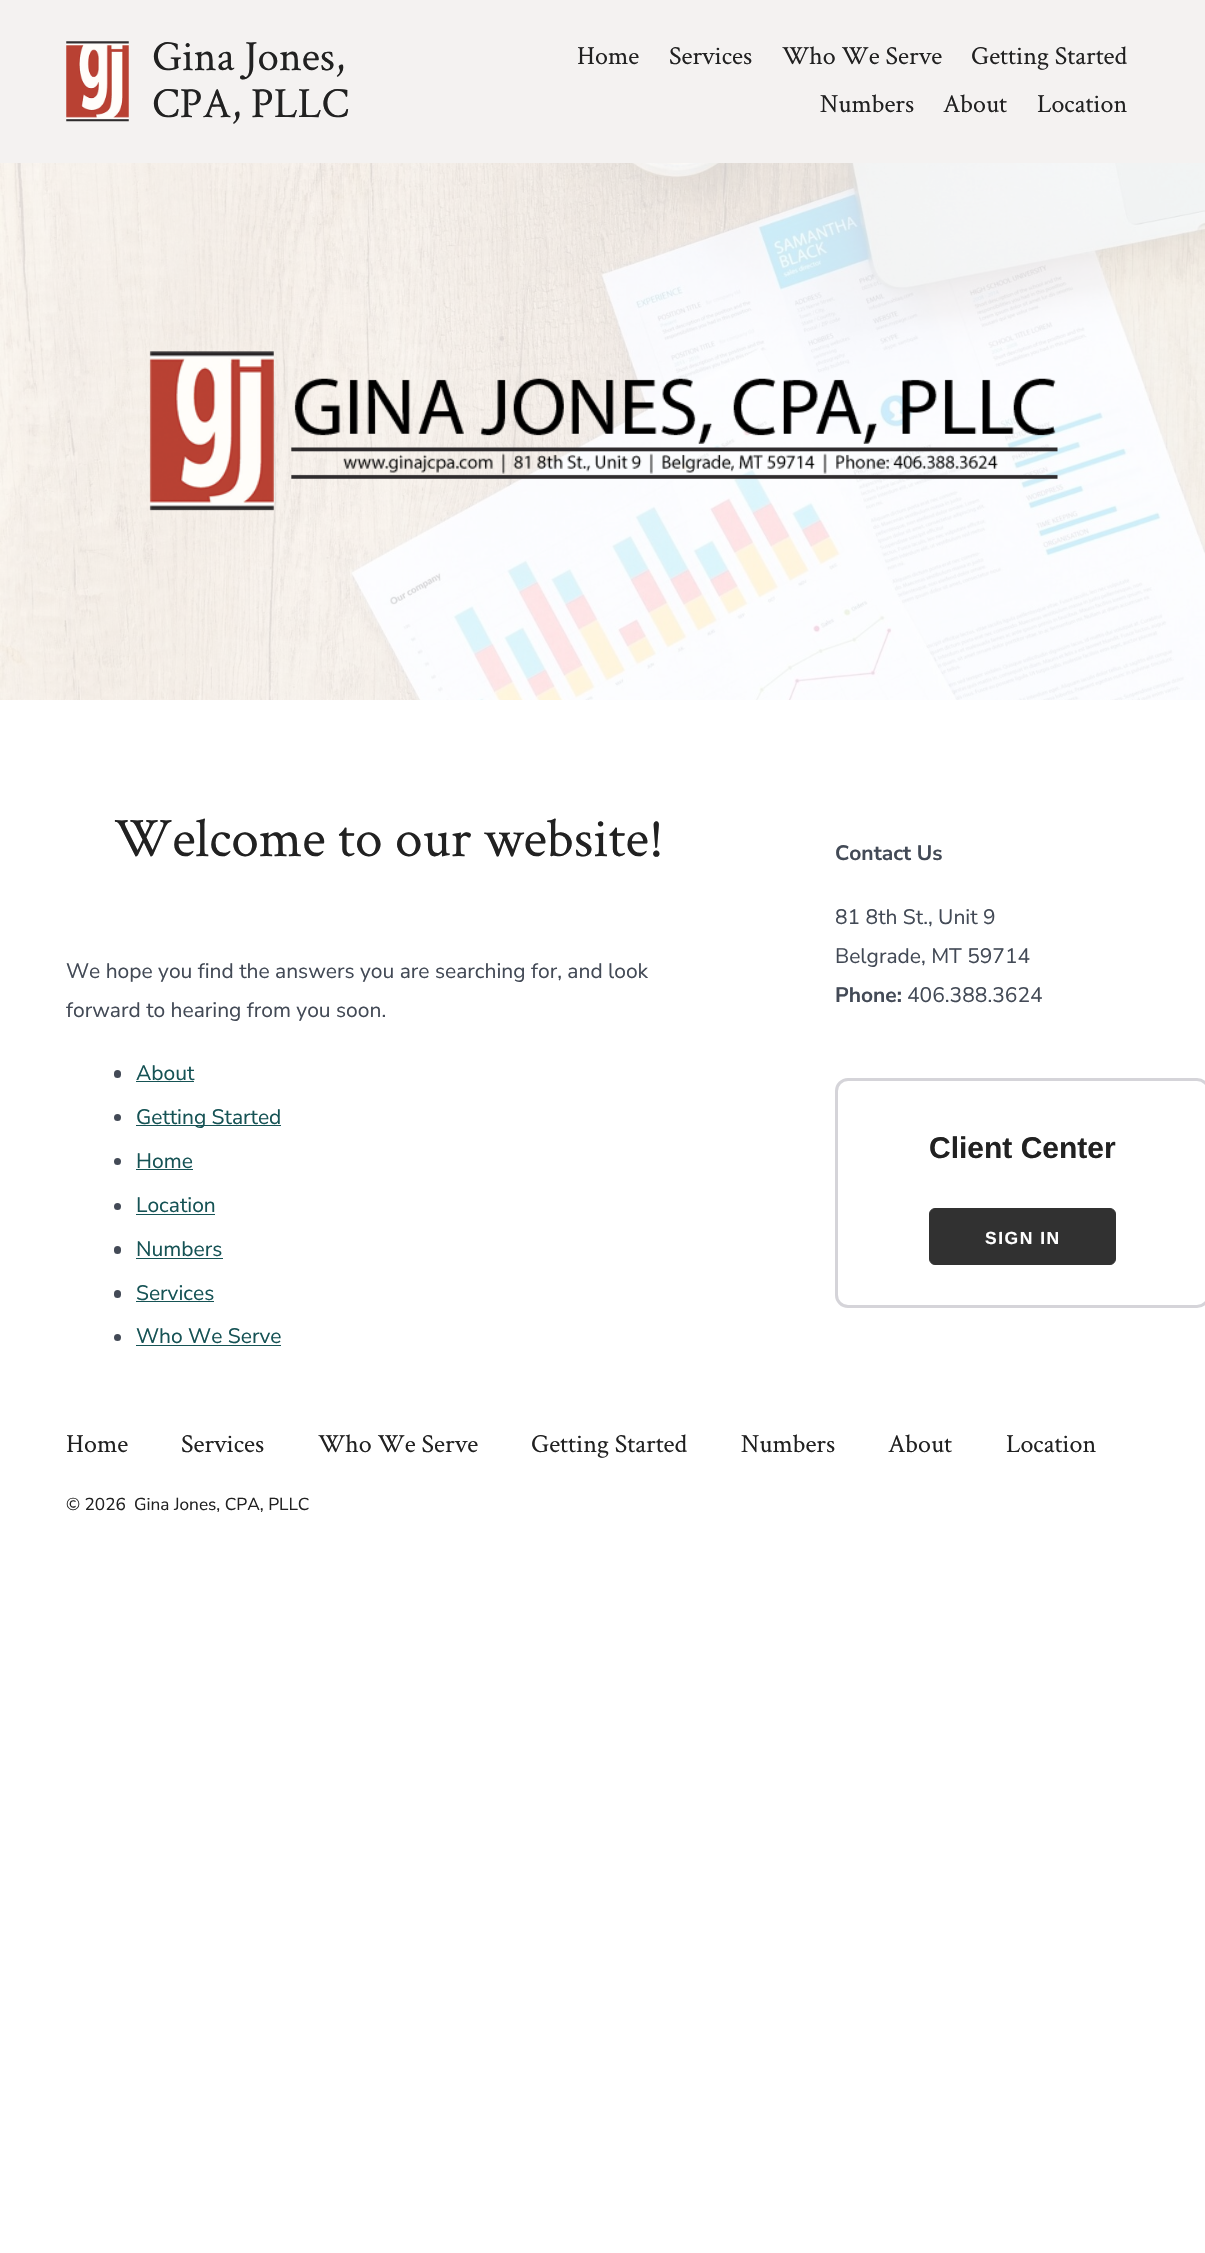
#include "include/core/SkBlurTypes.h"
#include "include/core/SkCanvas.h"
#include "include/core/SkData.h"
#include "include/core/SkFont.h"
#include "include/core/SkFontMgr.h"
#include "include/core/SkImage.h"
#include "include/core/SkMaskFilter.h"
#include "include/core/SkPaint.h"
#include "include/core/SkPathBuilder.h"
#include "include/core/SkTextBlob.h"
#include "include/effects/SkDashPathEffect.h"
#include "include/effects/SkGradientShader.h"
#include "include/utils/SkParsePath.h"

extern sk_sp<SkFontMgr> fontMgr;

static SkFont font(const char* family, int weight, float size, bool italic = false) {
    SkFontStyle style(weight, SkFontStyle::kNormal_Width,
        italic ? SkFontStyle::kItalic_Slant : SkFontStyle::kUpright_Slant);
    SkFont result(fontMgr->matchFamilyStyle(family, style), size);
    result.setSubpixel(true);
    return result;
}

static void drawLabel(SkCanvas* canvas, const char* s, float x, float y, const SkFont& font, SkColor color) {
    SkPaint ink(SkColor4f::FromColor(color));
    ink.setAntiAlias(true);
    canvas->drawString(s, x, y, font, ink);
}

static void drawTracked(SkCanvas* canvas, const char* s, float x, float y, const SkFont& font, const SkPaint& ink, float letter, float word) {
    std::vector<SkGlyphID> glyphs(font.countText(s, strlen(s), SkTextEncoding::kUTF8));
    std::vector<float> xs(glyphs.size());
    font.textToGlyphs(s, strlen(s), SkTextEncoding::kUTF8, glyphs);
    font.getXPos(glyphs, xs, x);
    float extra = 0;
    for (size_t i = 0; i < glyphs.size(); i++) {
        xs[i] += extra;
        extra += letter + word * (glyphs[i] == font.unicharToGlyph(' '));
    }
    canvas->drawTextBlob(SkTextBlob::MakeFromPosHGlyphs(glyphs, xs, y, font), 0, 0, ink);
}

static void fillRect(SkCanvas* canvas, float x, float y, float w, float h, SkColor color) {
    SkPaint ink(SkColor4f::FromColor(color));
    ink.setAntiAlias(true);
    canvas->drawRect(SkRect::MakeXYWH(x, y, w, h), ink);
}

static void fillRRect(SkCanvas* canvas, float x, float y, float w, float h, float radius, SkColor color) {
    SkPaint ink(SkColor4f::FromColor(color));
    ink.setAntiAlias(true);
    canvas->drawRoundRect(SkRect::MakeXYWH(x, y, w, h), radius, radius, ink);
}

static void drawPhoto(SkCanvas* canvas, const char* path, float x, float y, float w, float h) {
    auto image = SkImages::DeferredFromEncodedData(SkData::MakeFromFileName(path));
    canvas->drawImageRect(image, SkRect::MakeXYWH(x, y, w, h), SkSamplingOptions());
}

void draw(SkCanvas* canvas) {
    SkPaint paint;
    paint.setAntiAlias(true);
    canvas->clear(0xFFFFFFFF);
    fillRect(canvas, 0, 0, 1205, 163, 0xFFF4F2F1);
    drawPhoto(canvas, "assets/img1.png", 66, 41, 63, 81);
    SkFont font1 = font("Crimson Text", 400, 43);
    drawLabel(canvas, "Gina Jones,", 152, 70, font1, 0xFF212121);
    drawLabel(canvas, "CPA, PLLC", 152, 117, font1, 0xFF212121);
    SkFont font2 = font("Crimson Text", 400, 26);
    drawLabel(canvas, "Home", 577, 64, font2, 0xFF212121);
    drawLabel(canvas, "Services", 669, 64, font2, 0xFF212121);
    drawLabel(canvas, "Who We Serve", 782, 64, font2, 0xFF212121);
    drawLabel(canvas, "Getting Started", 971, 64, font2, 0xFF212121);
    drawLabel(canvas, "Numbers", 820, 112, font2, 0xFF212121);
    drawLabel(canvas, "About", 943, 112, font2, 0xFF212121);
    drawLabel(canvas, "Location", 1037, 112, font2, 0xFF212121);
    drawPhoto(canvas, "assets/img2.png", 0, 163, 1205, 537);
    drawPhoto(canvas, "assets/img3.png", 149, 351, 909, 160);
    SkFont font3 = font("Crimson Text", 400, 55.5f);
    drawLabel(canvas, "Welcome to our website!", 114, 856, font3, 0xFF212121);
    SkFont font4 = font("Nunito Sans", 400, 21);
    drawLabel(canvas, "We hope you find the answers you are searching for, and look", 66, 978, font4, 0xFF434A56);
    drawLabel(canvas, "forward to hearing from you soon.", 66, 1017, font4, 0xFF434A56);
    fillRRect(canvas, 114, 1070, 7, 8, 3.5f, 0xFF434A56);
    drawLabel(canvas, "About", 136, 1080, font4, 0xFF165355);
    fillRect(canvas, 136, 1081, 58, 1, 0xFF165355);
    paint.setColor(0xFF434A56);
    canvas->drawCircle(117.5f, 1117.5f, 3.5f, paint);
    fillRect(canvas, 136, 1125, 145, 1, 0xFF165355);
    drawLabel(canvas, "Getting Started", 136, 1124, font4, 0xFF165355);
    canvas->drawCircle(117.5f, 1161.5f, 3.5f, paint);
    drawLabel(canvas, "Home", 136, 1168, font4, 0xFF165355);
    fillRect(canvas, 136, 1169, 57, 1, 0xFF165355);
    canvas->drawCircle(117.5f, 1206.5f, 3.5f, paint);
    drawLabel(canvas, "Location", 136, 1212, font4, 0xFF165355);
    fillRect(canvas, 136, 1214, 79, 1, 0xFF165355);
    fillRRect(canvas, 114, 1246, 7, 8, 3.5f, 0xFF434A56);
    drawLabel(canvas, "Numbers", 136, 1256, font4, 0xFF165355);
    fillRect(canvas, 136, 1258, 87, 1, 0xFF165355);
    fillRRect(canvas, 114, 1290, 7, 8, 3.5f, 0xFF434A56);
    drawLabel(canvas, "Services", 136, 1300, font4, 0xFF165355);
    fillRect(canvas, 136, 1301, 78, 1, 0xFF165355);
    canvas->drawCircle(117.5f, 1337.5f, 3.5f, paint);
    drawLabel(canvas, "Who We Serve", 136, 1343, font4, 0xFF165355);
    fillRect(canvas, 136, 1345, 145, 1, 0xFF165355);
    SkFont font5 = font("Nunito Sans", 700, 21);
    drawLabel(canvas, "Contact Us", 835, 860, font5, 0xFF434A56);
    drawLabel(canvas, "81 8th St., Unit 9", 835, 924, font4, 0xFF434A56);
    drawLabel(canvas, "Belgrade, MT 59714", 835, 963, font4, 0xFF434A56);
    drawLabel(canvas, "Phone:", 835, 1002, font5, 0xFF434A56);
    drawLabel(canvas, "406.388.3624", 907, 1002, font4, 0xFF434A56);
    paint.setStroke(true);
    paint.setStrokeWidth(3);
    paint.setColor(0xFFD5D4D9);
    canvas->drawRoundRect(SkRect::MakeXYWH(836.5f, 1079.5f, 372, 227), 11.5f, 11.5f, paint);
    SkFont font6 = font("Liberation Sans", 700, 30);
    drawLabel(canvas, "Client Center", 929, 1158, font6, 0xFF212121);
    paint.setStroke(false);
    paint.setColor(0xFF313131);
    canvas->drawRoundRect(SkRect::MakeXYWH(929.5f, 1208.5f, 186, 56), 5.5f, 5.5f, paint);
    paint.setStroke(true);
    paint.setStrokeWidth(1);
    canvas->drawRoundRect(SkRect::MakeXYWH(929.5f, 1208.5f, 186, 56), 5.5f, 5.5f, paint);
    SkFont font7 = font("Liberation Sans", 700, 17.5f);
    paint.setStroke(false);
    paint.setColor(0xFFFFFFFF);
    drawTracked(canvas, "SIGN IN", 985, 1244, font7, paint, 1.5f, 0);
    drawLabel(canvas, "Home", 66, 1452, font2, 0xFF212121);
    drawLabel(canvas, "Services", 181, 1452, font2, 0xFF212121);
    drawLabel(canvas, "Who We Serve", 318, 1452, font2, 0xFF212121);
    drawLabel(canvas, "Getting Started", 531, 1452, font2, 0xFF212121);
    drawLabel(canvas, "Numbers", 741, 1452, font2, 0xFF212121);
    drawLabel(canvas, "About", 888, 1452, font2, 0xFF212121);
    drawLabel(canvas, "Location", 1006, 1452, font2, 0xFF212121);
    SkFont font8 = font("Nunito Sans", 400, 17.25f);
    drawLabel(canvas, "© 2026", 66, 1510, font8, 0xFF212121);
    drawLabel(canvas, "Gina Jones, CPA, PLLC", 134, 1510, font8, 0xFF212121);
}
